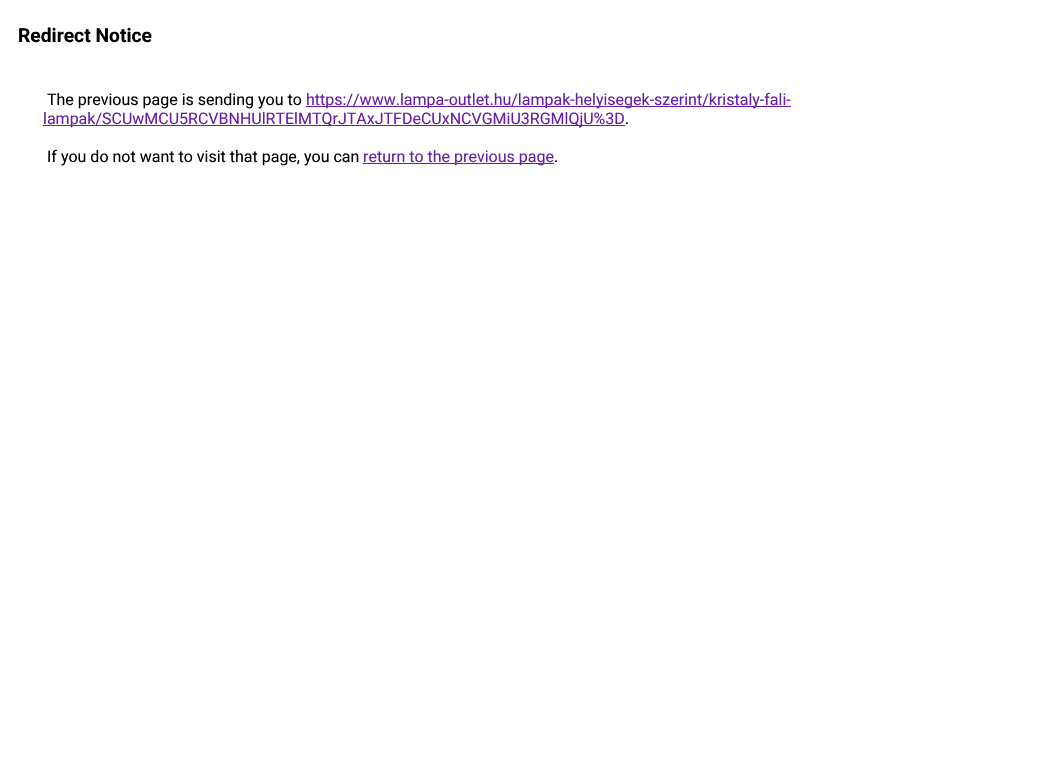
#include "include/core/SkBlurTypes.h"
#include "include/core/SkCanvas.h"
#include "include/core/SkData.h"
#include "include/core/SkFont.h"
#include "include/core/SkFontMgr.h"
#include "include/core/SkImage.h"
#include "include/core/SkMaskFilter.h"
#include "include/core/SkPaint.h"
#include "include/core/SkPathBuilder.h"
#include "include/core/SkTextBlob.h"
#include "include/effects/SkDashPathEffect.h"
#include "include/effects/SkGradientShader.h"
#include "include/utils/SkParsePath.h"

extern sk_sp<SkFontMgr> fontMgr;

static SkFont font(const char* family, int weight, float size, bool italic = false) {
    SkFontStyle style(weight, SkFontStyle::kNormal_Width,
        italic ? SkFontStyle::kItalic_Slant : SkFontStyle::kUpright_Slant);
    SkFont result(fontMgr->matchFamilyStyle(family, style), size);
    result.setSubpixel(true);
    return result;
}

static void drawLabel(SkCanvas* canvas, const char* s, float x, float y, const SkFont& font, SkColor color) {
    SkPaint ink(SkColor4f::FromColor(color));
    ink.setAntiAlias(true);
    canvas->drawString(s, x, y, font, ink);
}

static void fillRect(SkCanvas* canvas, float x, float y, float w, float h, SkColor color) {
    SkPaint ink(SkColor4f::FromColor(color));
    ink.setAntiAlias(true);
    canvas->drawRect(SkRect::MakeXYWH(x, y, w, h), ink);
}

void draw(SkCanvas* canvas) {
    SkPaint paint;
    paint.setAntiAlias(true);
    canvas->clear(0xFFFFFFFF);
    SkFont font1 = font("Roboto", 700, 19.25f);
    drawLabel(canvas, "Redirect Notice", 18, 42, font1, 0xFF000000);
    SkFont font2 = font("Roboto", 400, 16);
    drawLabel(canvas, "The previous page is sending you to", 47, 105, font2, 0xFF000000);
    fillRect(canvas, 306, 106, 485, 1, 0xFF681DA8);
    drawLabel(canvas, "https://www.lampa-outlet.hu/lampak-helyisegek-szerint/kristaly-fali-", 306, 105, font2, 0xFF681DA8);
    fillRect(canvas, 43, 125, 582, 1, 0xFF681DA8);
    drawLabel(canvas, "lampak/SCUwMCU5RCVBNHUlRTElMTQrJTAxJTFDeCUxNCVGMiU3RGMlQjU%3D", 43, 124, font2, 0xFF681DA8);
    drawLabel(canvas, ".", 625, 124, font2, 0xFF000000);
    drawLabel(canvas, "If you do not want to visit that page, you can", 47, 162, font2, 0xFF000000);
    fillRect(canvas, 363, 163, 191, 1, 0xFF681DA8);
    drawLabel(canvas, "return to the previous page", 363, 162, font2, 0xFF681DA8);
    drawLabel(canvas, ".", 554, 162, font2, 0xFF000000);
}
